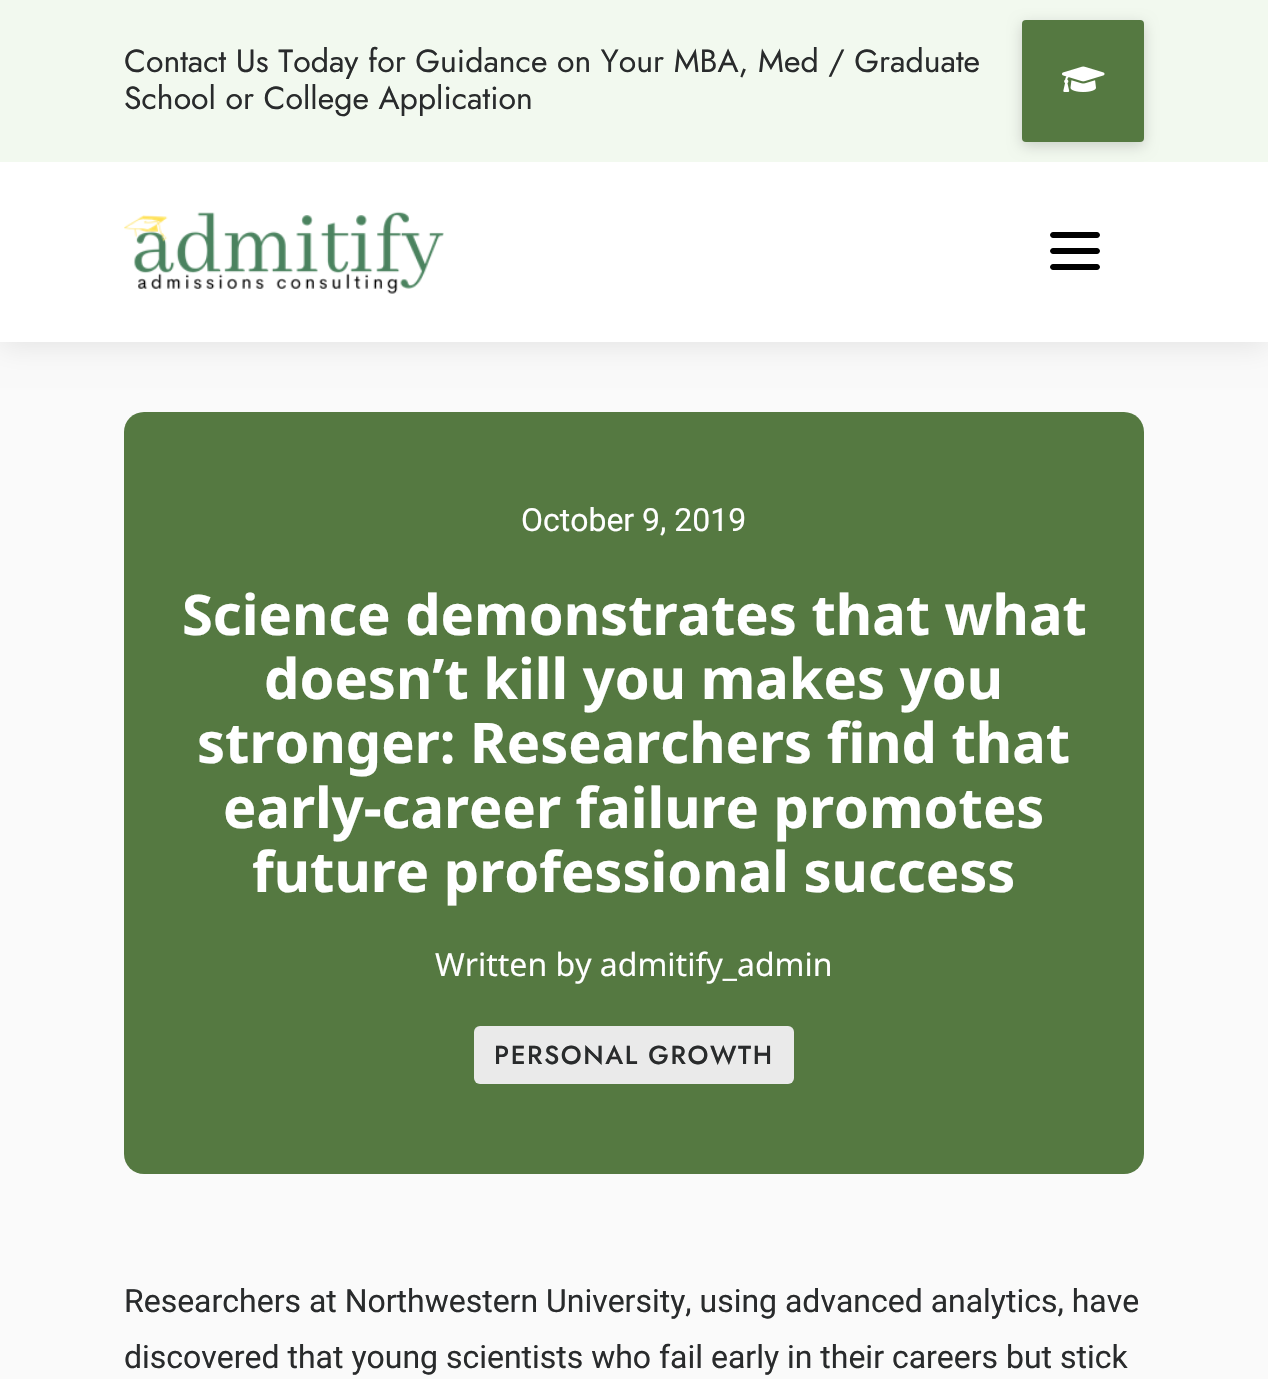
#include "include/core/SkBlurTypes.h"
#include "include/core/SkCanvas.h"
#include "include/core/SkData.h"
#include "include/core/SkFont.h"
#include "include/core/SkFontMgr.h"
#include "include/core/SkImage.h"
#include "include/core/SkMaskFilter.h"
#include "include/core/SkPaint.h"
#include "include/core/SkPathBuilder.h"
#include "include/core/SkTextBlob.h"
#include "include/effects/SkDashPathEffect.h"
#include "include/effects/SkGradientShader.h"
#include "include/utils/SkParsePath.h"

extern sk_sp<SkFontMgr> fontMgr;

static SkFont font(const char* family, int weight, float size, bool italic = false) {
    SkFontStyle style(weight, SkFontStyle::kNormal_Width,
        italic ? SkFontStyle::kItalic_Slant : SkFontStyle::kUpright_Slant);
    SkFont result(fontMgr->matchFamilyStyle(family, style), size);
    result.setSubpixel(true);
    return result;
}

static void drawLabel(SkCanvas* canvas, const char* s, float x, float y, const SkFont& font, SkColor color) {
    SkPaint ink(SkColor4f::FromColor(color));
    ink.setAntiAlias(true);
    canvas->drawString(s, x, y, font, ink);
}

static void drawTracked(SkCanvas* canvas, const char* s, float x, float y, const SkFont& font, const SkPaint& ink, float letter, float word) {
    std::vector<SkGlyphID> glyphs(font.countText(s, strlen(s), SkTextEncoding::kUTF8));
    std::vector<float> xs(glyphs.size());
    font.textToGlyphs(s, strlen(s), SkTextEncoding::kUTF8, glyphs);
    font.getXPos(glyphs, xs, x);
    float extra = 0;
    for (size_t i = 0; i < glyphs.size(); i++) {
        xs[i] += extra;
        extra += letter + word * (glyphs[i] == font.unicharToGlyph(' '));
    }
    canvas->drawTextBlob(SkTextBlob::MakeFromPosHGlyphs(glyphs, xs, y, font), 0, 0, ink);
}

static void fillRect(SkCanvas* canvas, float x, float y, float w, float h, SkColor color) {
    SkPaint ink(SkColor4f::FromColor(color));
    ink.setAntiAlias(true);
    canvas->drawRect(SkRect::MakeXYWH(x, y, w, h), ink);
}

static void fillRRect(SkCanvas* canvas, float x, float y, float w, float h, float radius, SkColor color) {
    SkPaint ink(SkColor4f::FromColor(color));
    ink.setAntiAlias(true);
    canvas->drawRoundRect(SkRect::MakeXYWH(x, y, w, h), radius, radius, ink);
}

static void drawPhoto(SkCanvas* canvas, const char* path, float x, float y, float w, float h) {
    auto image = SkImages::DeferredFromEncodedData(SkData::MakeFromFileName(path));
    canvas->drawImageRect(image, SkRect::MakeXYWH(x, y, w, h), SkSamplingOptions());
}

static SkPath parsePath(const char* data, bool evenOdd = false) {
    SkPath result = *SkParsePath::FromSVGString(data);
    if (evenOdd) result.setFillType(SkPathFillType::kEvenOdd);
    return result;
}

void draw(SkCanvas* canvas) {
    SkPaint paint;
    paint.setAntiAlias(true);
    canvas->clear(0xFFFAFAFA);
    paint.setColor(0x17000000);
    paint.setMaskFilter(SkMaskFilter::MakeBlur(kNormal_SkBlurStyle, 14));
    canvas->drawRect(SkRect::MakeXYWH(0, 4, 1268, 342), paint);
    paint.setMaskFilter(nullptr);
    fillRect(canvas, 0, 0, 1268, 162, 0xFFF2F9EF);
    SkFont font1 = font("Jost", 400, 32);
    drawLabel(canvas, "Contact Us Today for Guidance on Your MBA, Med / Graduate", 124, 72, font1, 0xFF292B2C);
    drawLabel(canvas, "School or College Application", 124, 109, font1, 0xFF292B2C);
    paint.setColor(0x2B000000);
    paint.setMaskFilter(SkMaskFilter::MakeBlur(kNormal_SkBlurStyle, 7));
    canvas->drawRoundRect(SkRect::MakeXYWH(1022, 24, 122, 122), 4, 4, paint);
    paint.setMaskFilter(nullptr);
    fillRRect(canvas, 1022, 20, 122, 122, 4, 0xFF557941);
    drawPhoto(canvas, "assets/img1.png", 1062, 66, 43, 26);
    fillRect(canvas, 0, 162, 1268, 180, 0xFFFFFFFF);
    drawPhoto(canvas, "assets/img2.png", 124, 211, 320, 83);
    paint.setColor(0xFF000000);
    canvas->drawPath(parsePath("M1053 232H1074V238H1053C1051.5 238 1050 236.5 1050 235C1050 233.5 1051.5 232 1053 232Z"), paint);
    canvas->drawPath(parsePath("M1074 232H1097C1098.5 232 1100 233.5 1100 235C1100 236.5 1098.5 238 1097 238H1074Z"), paint);
    canvas->drawPath(parsePath("M1053 248H1074V254H1053C1051.5 254 1050 252.5 1050 251C1050 249.5 1051.5 248 1053 248Z"), paint);
    canvas->drawPath(parsePath("M1074 248H1097C1098.5 248 1100 249.5 1100 251C1100 252.5 1098.5 254 1097 254H1074Z"), paint);
    canvas->drawPath(parsePath("M1053 264H1074V270H1053C1051.5 270 1050 268.5 1050 267C1050 265.5 1051.5 264 1053 264Z"), paint);
    canvas->drawPath(parsePath("M1074 264H1097C1098.5 264 1100 265.5 1100 267C1100 268.5 1098.5 270 1097 270H1074Z"), paint);
    fillRRect(canvas, 124, 412, 1020, 762, 20, 0xFF557941);
    SkFont font2 = font("Roboto", 400, 32);
    drawLabel(canvas, "October 9, 2019", 521, 531, font2, 0xFFFFFFFF);
    SkFont font3 = font("Noto Sans", 700, 56);
    drawLabel(canvas, "Science demonstrates that what", 182, 635, font3, 0xFFFFFFFF);
    drawLabel(canvas, "doesn’t kill you makes you", 264, 699, font3, 0xFFFFFFFF);
    drawLabel(canvas, "stronger: Researchers find that", 197, 763, font3, 0xFFFFFFFF);
    drawLabel(canvas, "early-career failure promotes", 223, 828, font3, 0xFFFFFFFF);
    drawLabel(canvas, "future professional success", 252, 892, font3, 0xFFFFFFFF);
    SkFont font4 = font("Noto Sans", 400, 32);
    drawLabel(canvas, "Written by admitify_admin", 435, 976, font4, 0xFFFFFFFF);
    fillRRect(canvas, 474, 1026, 320, 58, 6, 0xFFEAEAEA);
    SkFont font5 = font("Jost", 500, 26);
    paint.setColor(0xFF292B2C);
    drawTracked(canvas, "PERSONAL GROWTH", 494, 1064, font5, paint, 1.6f, 0);
    drawLabel(canvas, "Researchers at Northwestern University, using advanced analytics, have", 124, 1312, font2, 0xFF292B2C);
    drawLabel(canvas, "discovered that young scientists who fail early in their careers but stick", 124, 1368, font2, 0xFF292B2C);
}
